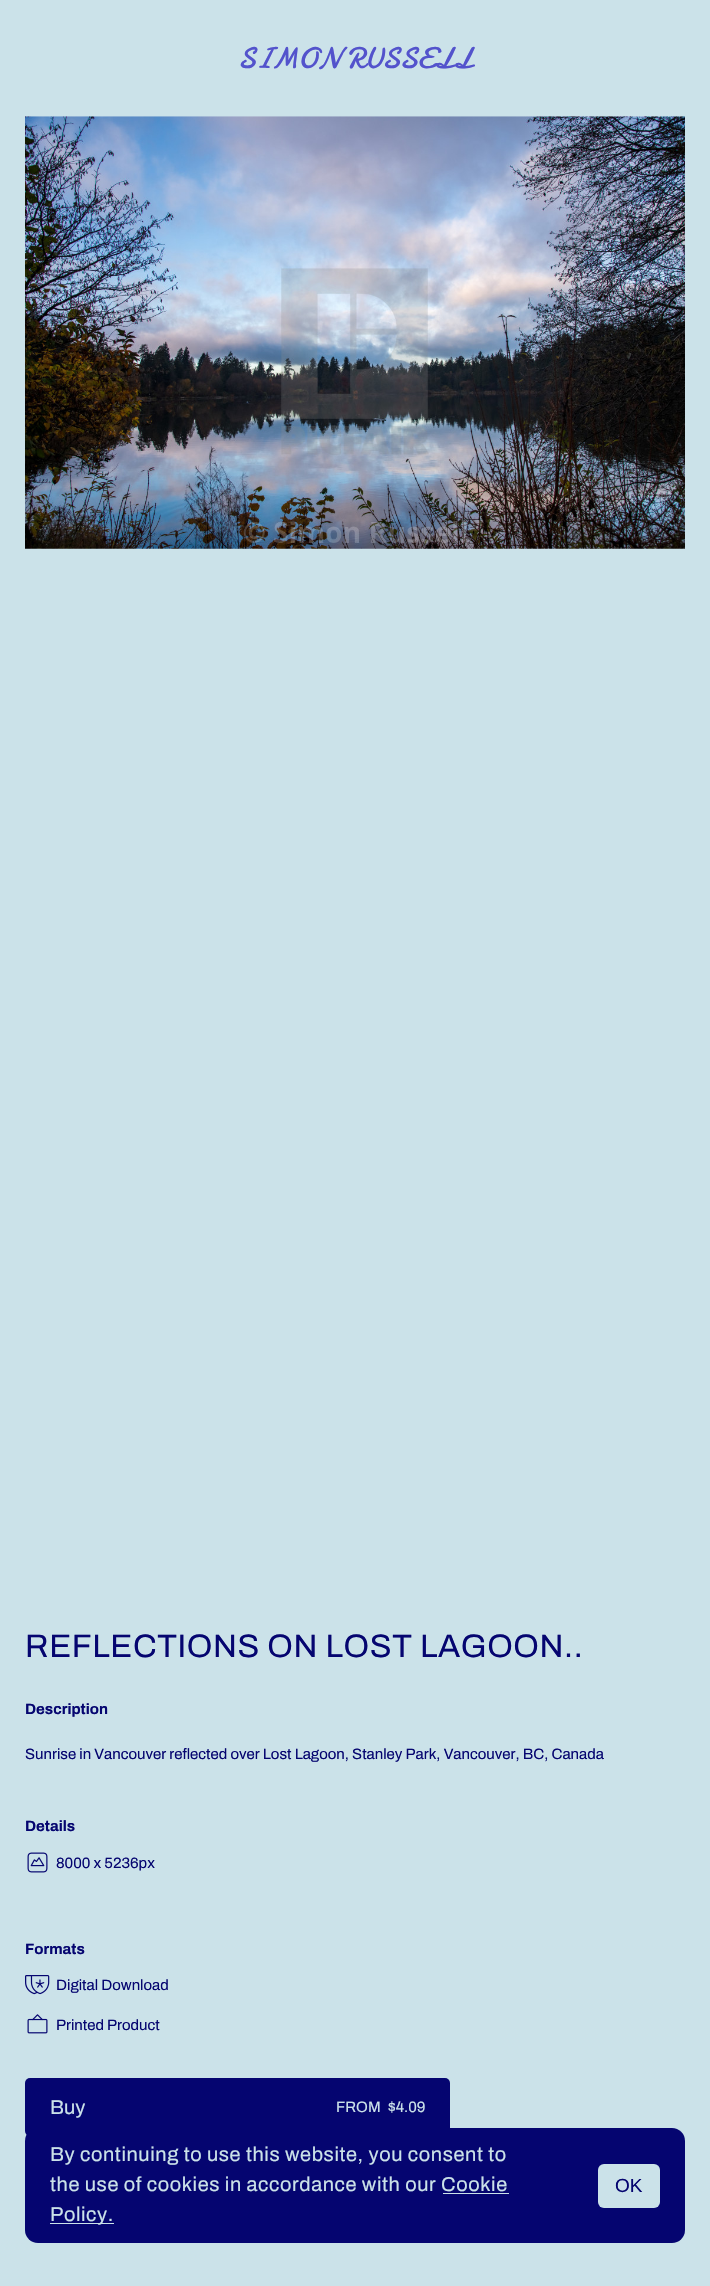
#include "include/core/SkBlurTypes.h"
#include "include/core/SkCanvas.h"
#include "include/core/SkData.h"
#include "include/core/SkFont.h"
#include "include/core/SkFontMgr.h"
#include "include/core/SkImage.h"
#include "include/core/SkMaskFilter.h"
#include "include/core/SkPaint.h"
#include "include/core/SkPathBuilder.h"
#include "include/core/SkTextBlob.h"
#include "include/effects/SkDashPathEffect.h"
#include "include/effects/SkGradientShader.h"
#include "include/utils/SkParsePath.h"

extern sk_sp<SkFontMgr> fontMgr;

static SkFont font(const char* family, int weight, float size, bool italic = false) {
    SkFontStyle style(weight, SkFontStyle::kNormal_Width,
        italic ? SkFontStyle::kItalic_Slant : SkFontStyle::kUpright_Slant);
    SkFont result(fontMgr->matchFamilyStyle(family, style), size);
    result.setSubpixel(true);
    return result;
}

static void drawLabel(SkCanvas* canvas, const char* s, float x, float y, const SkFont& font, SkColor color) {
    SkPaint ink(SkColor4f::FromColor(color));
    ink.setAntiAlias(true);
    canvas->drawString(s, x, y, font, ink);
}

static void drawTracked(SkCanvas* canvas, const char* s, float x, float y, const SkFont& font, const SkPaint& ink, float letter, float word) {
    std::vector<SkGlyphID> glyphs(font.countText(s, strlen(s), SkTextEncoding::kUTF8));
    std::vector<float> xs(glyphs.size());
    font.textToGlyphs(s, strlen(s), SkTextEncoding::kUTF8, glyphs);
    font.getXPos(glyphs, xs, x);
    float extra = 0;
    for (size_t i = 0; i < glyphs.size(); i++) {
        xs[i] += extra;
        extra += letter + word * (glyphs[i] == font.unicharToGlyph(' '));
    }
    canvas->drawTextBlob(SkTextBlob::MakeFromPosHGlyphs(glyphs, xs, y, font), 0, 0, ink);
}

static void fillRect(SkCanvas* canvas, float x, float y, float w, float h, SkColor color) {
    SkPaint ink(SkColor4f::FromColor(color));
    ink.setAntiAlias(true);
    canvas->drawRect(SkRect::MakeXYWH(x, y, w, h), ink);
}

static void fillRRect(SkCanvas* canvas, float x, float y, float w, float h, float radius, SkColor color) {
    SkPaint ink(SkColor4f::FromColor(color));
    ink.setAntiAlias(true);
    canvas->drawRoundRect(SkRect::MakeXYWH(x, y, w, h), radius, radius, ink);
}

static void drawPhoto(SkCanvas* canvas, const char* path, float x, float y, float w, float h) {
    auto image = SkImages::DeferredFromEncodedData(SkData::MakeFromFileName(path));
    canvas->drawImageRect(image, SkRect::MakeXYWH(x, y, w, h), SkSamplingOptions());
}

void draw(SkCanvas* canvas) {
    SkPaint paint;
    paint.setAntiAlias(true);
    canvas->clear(0xFFCBE2E9);
    SkFont font1 = font("Damion", 400, 30);
    drawLabel(canvas, "SIMON RUSSELL", 238, 68, font1, 0xFF5353CC);
    drawPhoto(canvas, "assets/img1.png", 25, 116, 660, 433);
    SkFont font2 = font("Archivo", 400, 32.5f);
    paint.setColor(0xFF050570);
    drawTracked(canvas, "REFLECTIONS ON LOST LAGOON..", 25, 1657, font2, paint, 0.6f, 0);
    SkFont font3 = font("Archivo", 700, 15);
    drawLabel(canvas, "Description", 25, 1714, font3, 0xFF050570);
    SkFont font4 = font("Archivo", 400, 15);
    drawLabel(canvas, "Sunrise in Vancouver reflected over Lost Lagoon, Stanley Park, Vancouver, BC, Canada", 25, 1759, font4, 0xFF050570);
    drawLabel(canvas, "Details", 25, 1831, font3, 0xFF050570);
    drawPhoto(canvas, "assets/img2.png", 27, 1852, 21, 21);
    drawLabel(canvas, "8000 x 5236px", 56, 1868, font4, 0xFF050570);
    drawLabel(canvas, "Formats", 25, 1954, font3, 0xFF050570);
    drawPhoto(canvas, "assets/img3.png", 25, 1975, 25, 20);
    drawLabel(canvas, "Digital Download", 56, 1990, font4, 0xFF050570);
    drawPhoto(canvas, "assets/img4.png", 27, 2014, 21, 20);
    drawLabel(canvas, "Printed Product", 56, 2030, font4, 0xFF050570);
    fillRRect(canvas, 25, 2078, 425, 58, 5, 0xFF050570);
    SkFont font5 = font("Archivo", 400, 20);
    drawLabel(canvas, "Buy", 50, 2114, font5, 0xFFCBE2E9);
    drawLabel(canvas, "FROM", 336, 2112, font4, 0xFFCBE2E9);
    drawLabel(canvas, "$4.09", 388, 2112, font4, 0xFFCBE2E9);
    fillRRect(canvas, 25, 2128, 660, 115, 13, 0xFF050570);
    paint.setColor(0xFFCBE2E9);
    drawTracked(canvas, "By continuing to use this website, you consent to", 50, 2161, font5, paint, 0.6f, 0);
    drawTracked(canvas, "the use of cookies in accordance with our Cookie", 50, 2191, font5, paint, 0.6f, 0);
    fillRect(canvas, 50, 2223, 64, 1, 0xFFCBE2E9);
    drawTracked(canvas, "Policy.", 50, 2221, font5, paint, 0.6f, 0);
    fillRect(canvas, 443, 2193, 66, 1, 0xFFCBE2E9);
    fillRRect(canvas, 598, 2164, 62, 44, 6, 0xFFCBE2E9);
    SkFont font6 = font("Liberation Sans", 400, 19);
    drawLabel(canvas, "OK", 615, 2192, font6, 0xFF050570);
}
